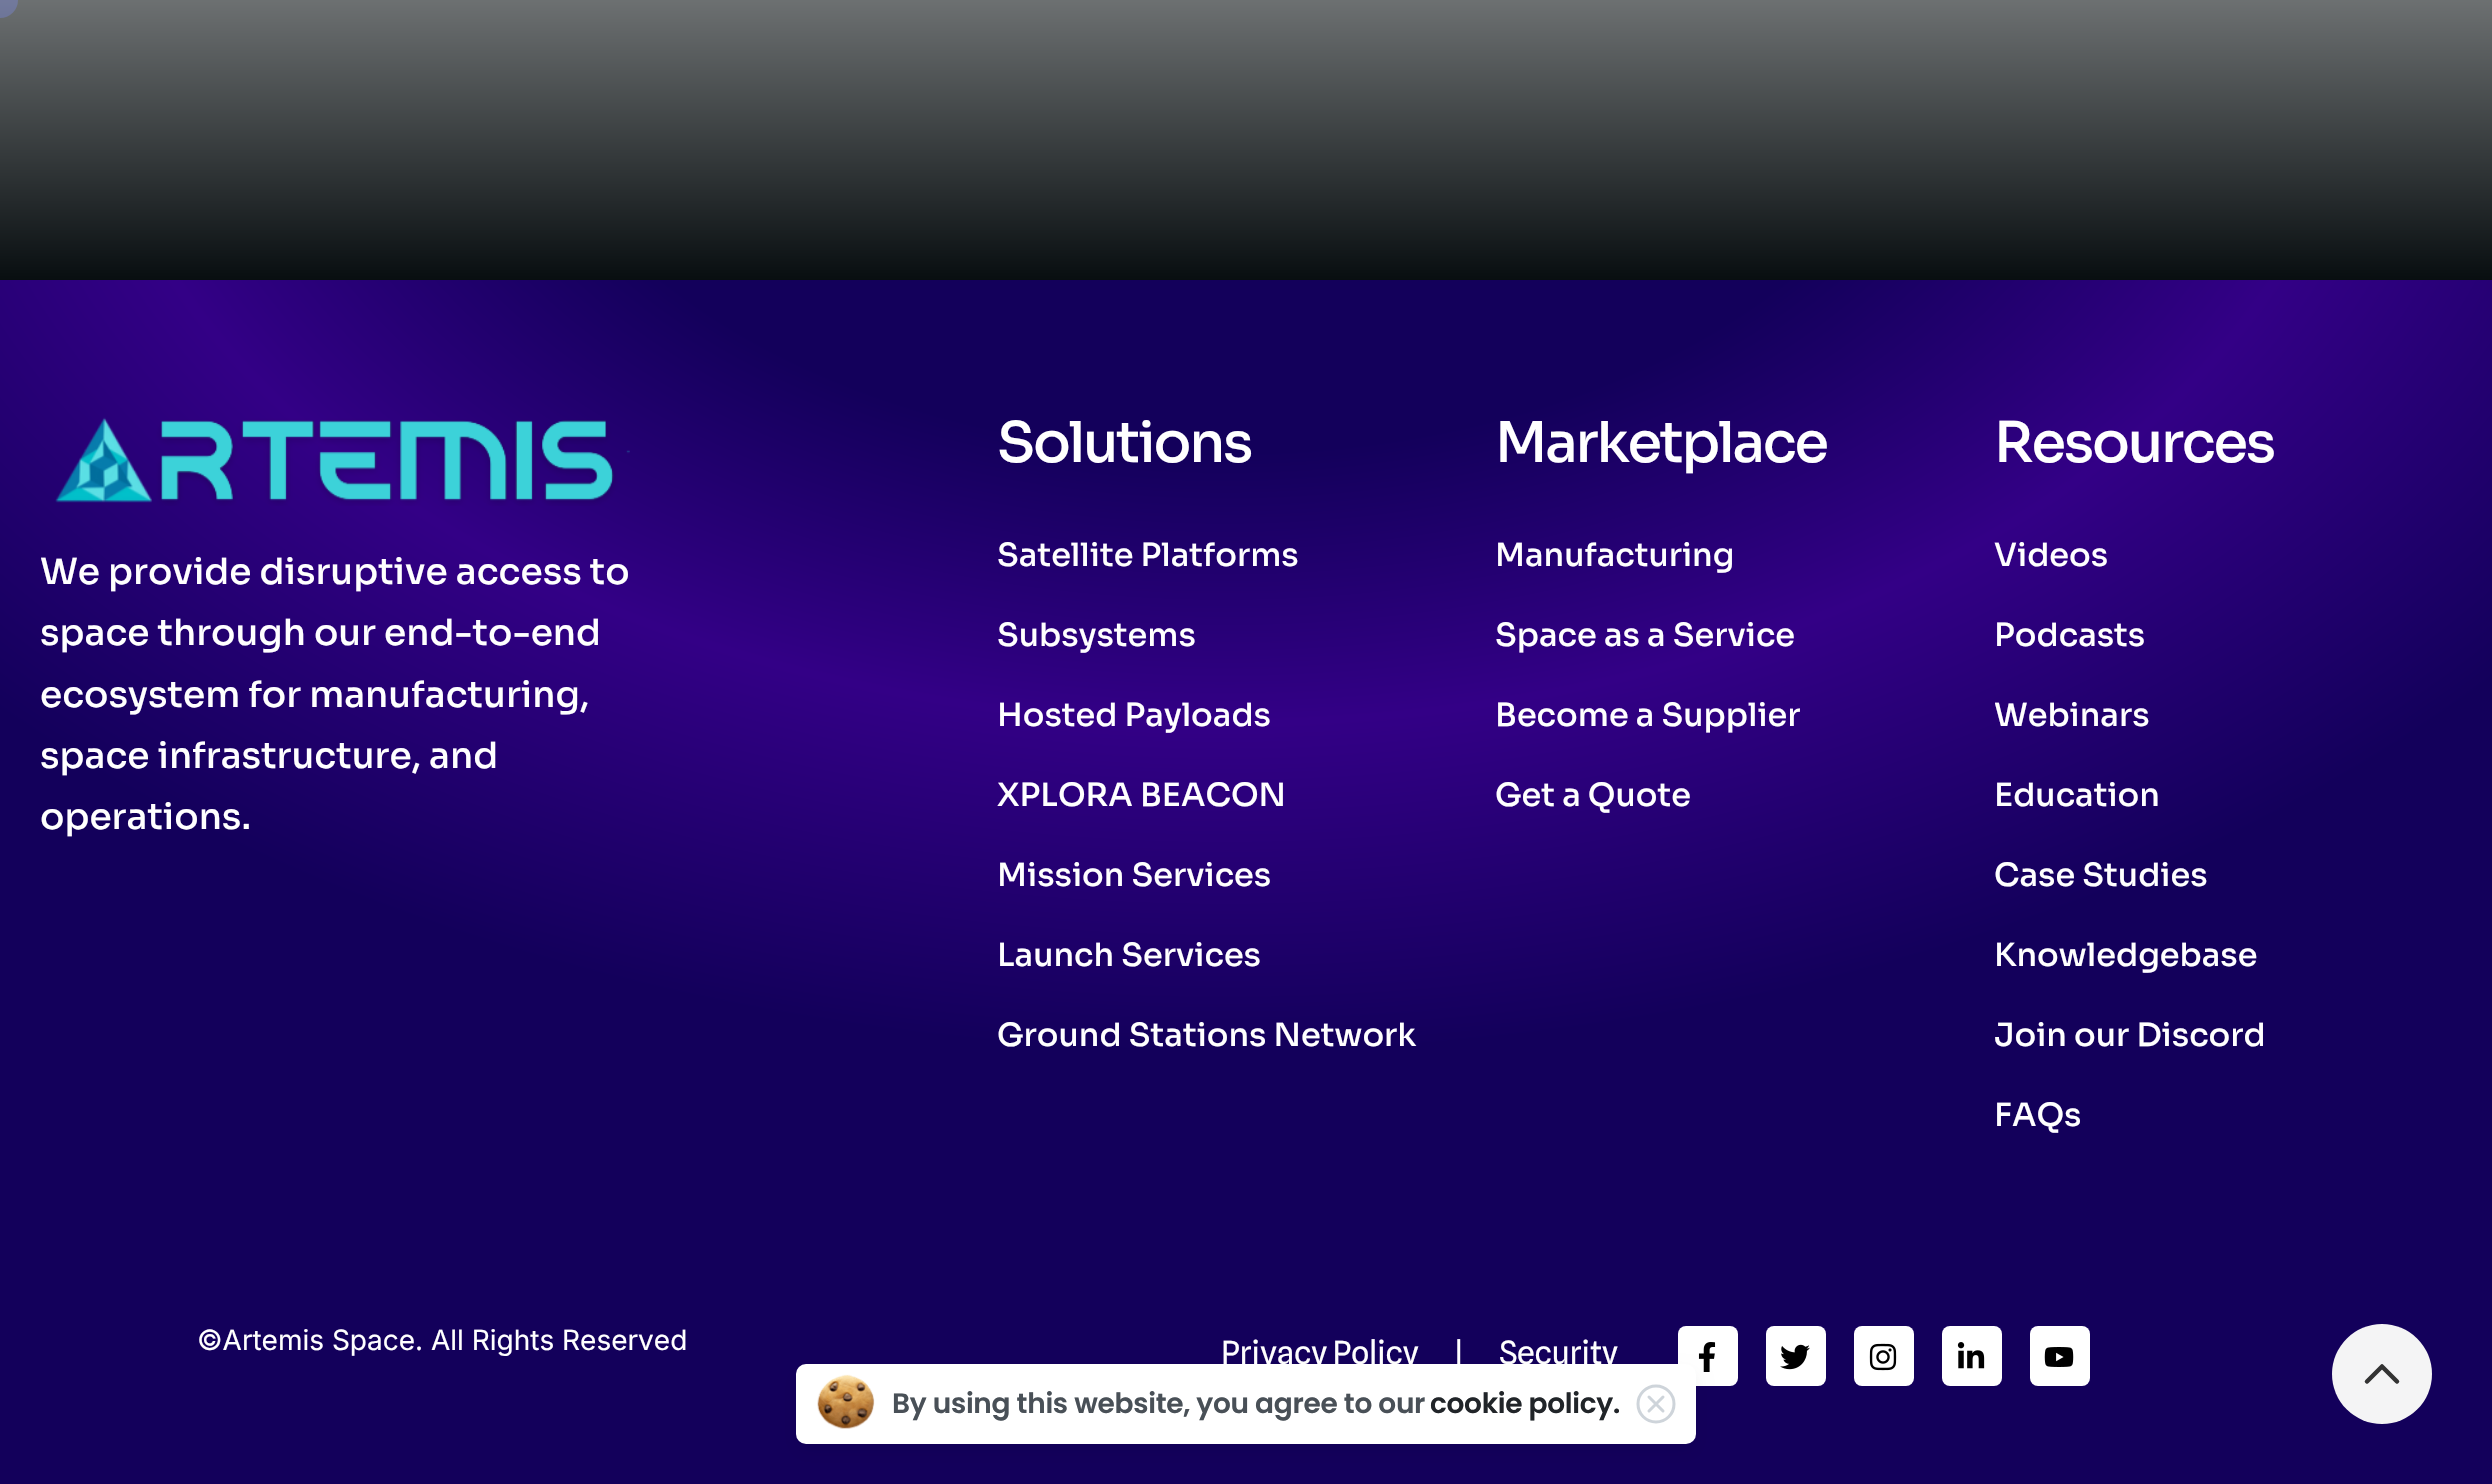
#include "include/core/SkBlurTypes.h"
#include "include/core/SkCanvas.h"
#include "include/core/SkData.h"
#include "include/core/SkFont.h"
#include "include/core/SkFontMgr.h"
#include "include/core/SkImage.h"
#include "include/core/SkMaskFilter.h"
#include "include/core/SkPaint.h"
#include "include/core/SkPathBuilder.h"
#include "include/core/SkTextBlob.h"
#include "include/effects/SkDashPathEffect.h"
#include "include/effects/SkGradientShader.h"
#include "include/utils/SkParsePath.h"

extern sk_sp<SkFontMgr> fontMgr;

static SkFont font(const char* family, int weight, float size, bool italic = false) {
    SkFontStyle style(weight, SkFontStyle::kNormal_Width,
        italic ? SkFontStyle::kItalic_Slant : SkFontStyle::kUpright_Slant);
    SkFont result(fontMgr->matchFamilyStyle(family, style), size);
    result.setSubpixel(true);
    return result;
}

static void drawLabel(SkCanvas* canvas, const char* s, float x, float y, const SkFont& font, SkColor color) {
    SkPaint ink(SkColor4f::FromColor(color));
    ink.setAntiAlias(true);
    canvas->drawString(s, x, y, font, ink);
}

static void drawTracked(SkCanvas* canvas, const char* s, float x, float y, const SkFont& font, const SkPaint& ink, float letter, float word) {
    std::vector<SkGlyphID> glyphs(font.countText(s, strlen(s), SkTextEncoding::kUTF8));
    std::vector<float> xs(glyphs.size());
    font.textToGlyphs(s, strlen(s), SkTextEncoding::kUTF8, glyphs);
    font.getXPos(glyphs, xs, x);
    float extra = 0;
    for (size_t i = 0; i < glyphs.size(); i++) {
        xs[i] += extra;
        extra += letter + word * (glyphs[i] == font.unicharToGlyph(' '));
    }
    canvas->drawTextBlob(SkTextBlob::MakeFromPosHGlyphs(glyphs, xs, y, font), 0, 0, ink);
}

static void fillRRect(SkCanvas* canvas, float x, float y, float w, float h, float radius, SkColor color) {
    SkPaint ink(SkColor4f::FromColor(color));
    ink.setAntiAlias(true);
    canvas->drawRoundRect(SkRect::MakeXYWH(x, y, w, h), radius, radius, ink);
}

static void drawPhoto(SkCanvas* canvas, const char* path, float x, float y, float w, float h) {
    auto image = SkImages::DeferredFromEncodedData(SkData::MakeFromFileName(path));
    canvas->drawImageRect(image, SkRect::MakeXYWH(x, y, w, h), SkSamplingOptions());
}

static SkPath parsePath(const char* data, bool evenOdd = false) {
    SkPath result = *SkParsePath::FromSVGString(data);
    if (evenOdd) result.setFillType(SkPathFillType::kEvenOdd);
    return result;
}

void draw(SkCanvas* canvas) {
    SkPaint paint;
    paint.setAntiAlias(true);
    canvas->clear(0xFFFFFFFF);
    {
        const SkColor colors[] = {0xFFFFFFFF, 0xFF080E10};
        const float stops[] = {0, 1};
        const SkPoint ends[] = {{1246, -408}, {1246, 280}};
        paint.setShader(SkGradientShader::MakeLinear(ends, colors, stops, 2, SkTileMode::kClamp));
        paint.setAlpha(255);
    }
    canvas->drawRect(SkRect::MakeXYWH(0, 0, 2492, 280), paint);
    paint.setShader(nullptr);
    paint.setColor(0x4D7D8DFF);
    canvas->drawCircle(0, 0, 18, paint);
    {
        const SkColor colors[] = {0xFF13005B, 0xFF330086, 0xFF13005B, 0xFF13005B};
        const float stops[] = {0.15f, 0.24f, 0.35f, 1};
        SkMatrix m = SkMatrix::Translate(1225, 0).preScale(4745, 3011);
        paint.setShader(SkGradientShader::MakeRadial({0, 0}, 1, colors, stops, 4, SkTileMode::kClamp, 0, &m));
        paint.setAlpha(255);
    }
    canvas->drawRect(SkRect::MakeXYWH(0, 280, 2492, 1204), paint);
    drawPhoto(canvas, "assets/img1.png", 55, 417, 575, 89);
    SkFont font1 = font("Sora", 500, 36);
    drawLabel(canvas, "We provide disruptive access to", 40, 584, font1, 0xFFFFFFFF);
    drawLabel(canvas, "space through our end-to-end", 40, 645, font1, 0xFFFFFFFF);
    drawLabel(canvas, "ecosystem for manufacturing,", 40, 707, font1, 0xFFFFFFFF);
    drawLabel(canvas, "space infrastructure, and", 40, 768, font1, 0xFFFFFFFF);
    drawLabel(canvas, "operations.", 40, 829, font1, 0xFFFFFFFF);
    SkFont font2 = font("Sora", 500, 56);
    paint.setShader(nullptr);
    paint.setColor(0xFFFFFFFF);
    drawTracked(canvas, "Solutions", 997, 462, font2, paint, -2.25f, 0);
    SkFont font3 = font("Sora", 500, 32);
    drawLabel(canvas, "Satellite Platforms", 997, 566, font3, 0xFFFFFFFF);
    drawLabel(canvas, "Subsystems", 997, 646, font3, 0xFFFFFFFF);
    drawLabel(canvas, "Hosted Payloads", 997, 726, font3, 0xFFFFFFFF);
    drawLabel(canvas, "XPLORA BEACON", 997, 806, font3, 0xFFFFFFFF);
    drawLabel(canvas, "Mission Services", 997, 886, font3, 0xFFFFFFFF);
    drawLabel(canvas, "Launch Services", 997, 966, font3, 0xFFFFFFFF);
    drawLabel(canvas, "Ground Stations Network", 997, 1046, font3, 0xFFFFFFFF);
    drawTracked(canvas, "Marketplace", 1495, 462, font2, paint, -2.25f, 0);
    drawLabel(canvas, "Manufacturing", 1495, 566, font3, 0xFFFFFFFF);
    drawLabel(canvas, "Space as a Service", 1495, 646, font3, 0xFFFFFFFF);
    drawLabel(canvas, "Become a Supplier", 1495, 726, font3, 0xFFFFFFFF);
    drawLabel(canvas, "Get a Quote", 1495, 806, font3, 0xFFFFFFFF);
    drawTracked(canvas, "Resources", 1994, 462, font2, paint, -2.25f, 0);
    drawLabel(canvas, "Videos", 1994, 566, font3, 0xFFFFFFFF);
    drawLabel(canvas, "Podcasts", 1994, 646, font3, 0xFFFFFFFF);
    drawLabel(canvas, "Webinars", 1994, 726, font3, 0xFFFFFFFF);
    drawLabel(canvas, "Education", 1994, 806, font3, 0xFFFFFFFF);
    drawLabel(canvas, "Case Studies", 1994, 886, font3, 0xFFFFFFFF);
    drawLabel(canvas, "Knowledgebase", 1994, 966, font3, 0xFFFFFFFF);
    drawLabel(canvas, "Join our Discord", 1994, 1046, font3, 0xFFFFFFFF);
    drawLabel(canvas, "FAQs", 1994, 1126, font3, 0xFFFFFFFF);
    SkFont font4 = font("Inter", 400, 28);
    drawLabel(canvas, "©Artemis Space. All Rights Reserved", 197, 1350, font4, 0xFFFFFFFF);
    SkFont font5 = font("Spline Sans", 400, 32);
    drawTracked(canvas, "Privacy Policy", 1221, 1364, font5, paint, -0.3f, 0);
    drawTracked(canvas, "|", 1454, 1364, font5, paint, -0.3f, 0);
    drawTracked(canvas, "Security", 1499, 1364, font5, paint, -0.3f, 0);
    fillRRect(canvas, 1678, 1326, 60, 60, 8, 0xFFFFFFFF);
    drawPhoto(canvas, "assets/img2.png", 1698, 1342, 18, 30);
    fillRRect(canvas, 1766, 1326, 60, 60, 8, 0xFFFFFFFF);
    drawPhoto(canvas, "assets/img3.png", 1780, 1344, 30, 26);
    fillRRect(canvas, 1854, 1326, 60, 60, 8, 0xFFFFFFFF);
    drawPhoto(canvas, "assets/img4.png", 1869, 1343, 28, 28);
    fillRRect(canvas, 1942, 1326, 60, 60, 8, 0xFFFFFFFF);
    drawPhoto(canvas, "assets/img5.png", 1957, 1342, 28, 27);
    fillRRect(canvas, 2030, 1326, 60, 60, 8, 0xFFFFFFFF);
    drawPhoto(canvas, "assets/img6.png", 2044, 1347, 30, 20);
    paint.setColor(0xFFF4F4F5);
    canvas->drawCircle(2382, 1374, 50, paint);
    paint.setStroke(true);
    paint.setStrokeWidth(4.5f);
    paint.setStrokeCap(SkPaint::kRound_Cap);
    paint.setStrokeJoin(SkPaint::kRound_Join);
    paint.setColor(0xFF333333);
    canvas->drawPath(parsePath("M2367 1381.5L2382 1366.5L2397 1381.5"), paint);
    paint.setStroke(false);
    paint.setColor(0x0D000000);
    paint.setMaskFilter(SkMaskFilter::MakeBlur(kNormal_SkBlurStyle, 8));
    canvas->drawRoundRect(SkRect::MakeXYWH(796, 1372, 900, 80), 10, 10, paint);
    paint.setMaskFilter(nullptr);
    fillRRect(canvas, 796, 1364, 900, 80, 10, 0xFFFFFFFF);
    drawPhoto(canvas, "assets/img7.png", 817, 1374, 58, 55);
    SkFont font6 = font("Poppins", 600, 28);
    paint.setColor(0xFF495057);
    drawTracked(canvas, "By using this website, you agree to our", 892, 1413, font6, paint, -0.3f, 0);
    paint.setColor(0xFF212529);
    drawTracked(canvas, "cookie policy.", 1430, 1413, font6, paint, -0.3f, 0);
    paint.setStroke(true);
    paint.setStrokeWidth(3);
    paint.setColor(0xFFCED4DA);
    canvas->drawPath(parsePath("M1656 1422C1666 1422 1674 1414 1674 1404C1674 1394 1666 1386 1656 1386C1646 1386 1638 1394 1638 1404C1638 1414 1646 1422 1656 1422ZM1663 1397L1649 1411M1649 1397L1663 1411"), paint);
}
